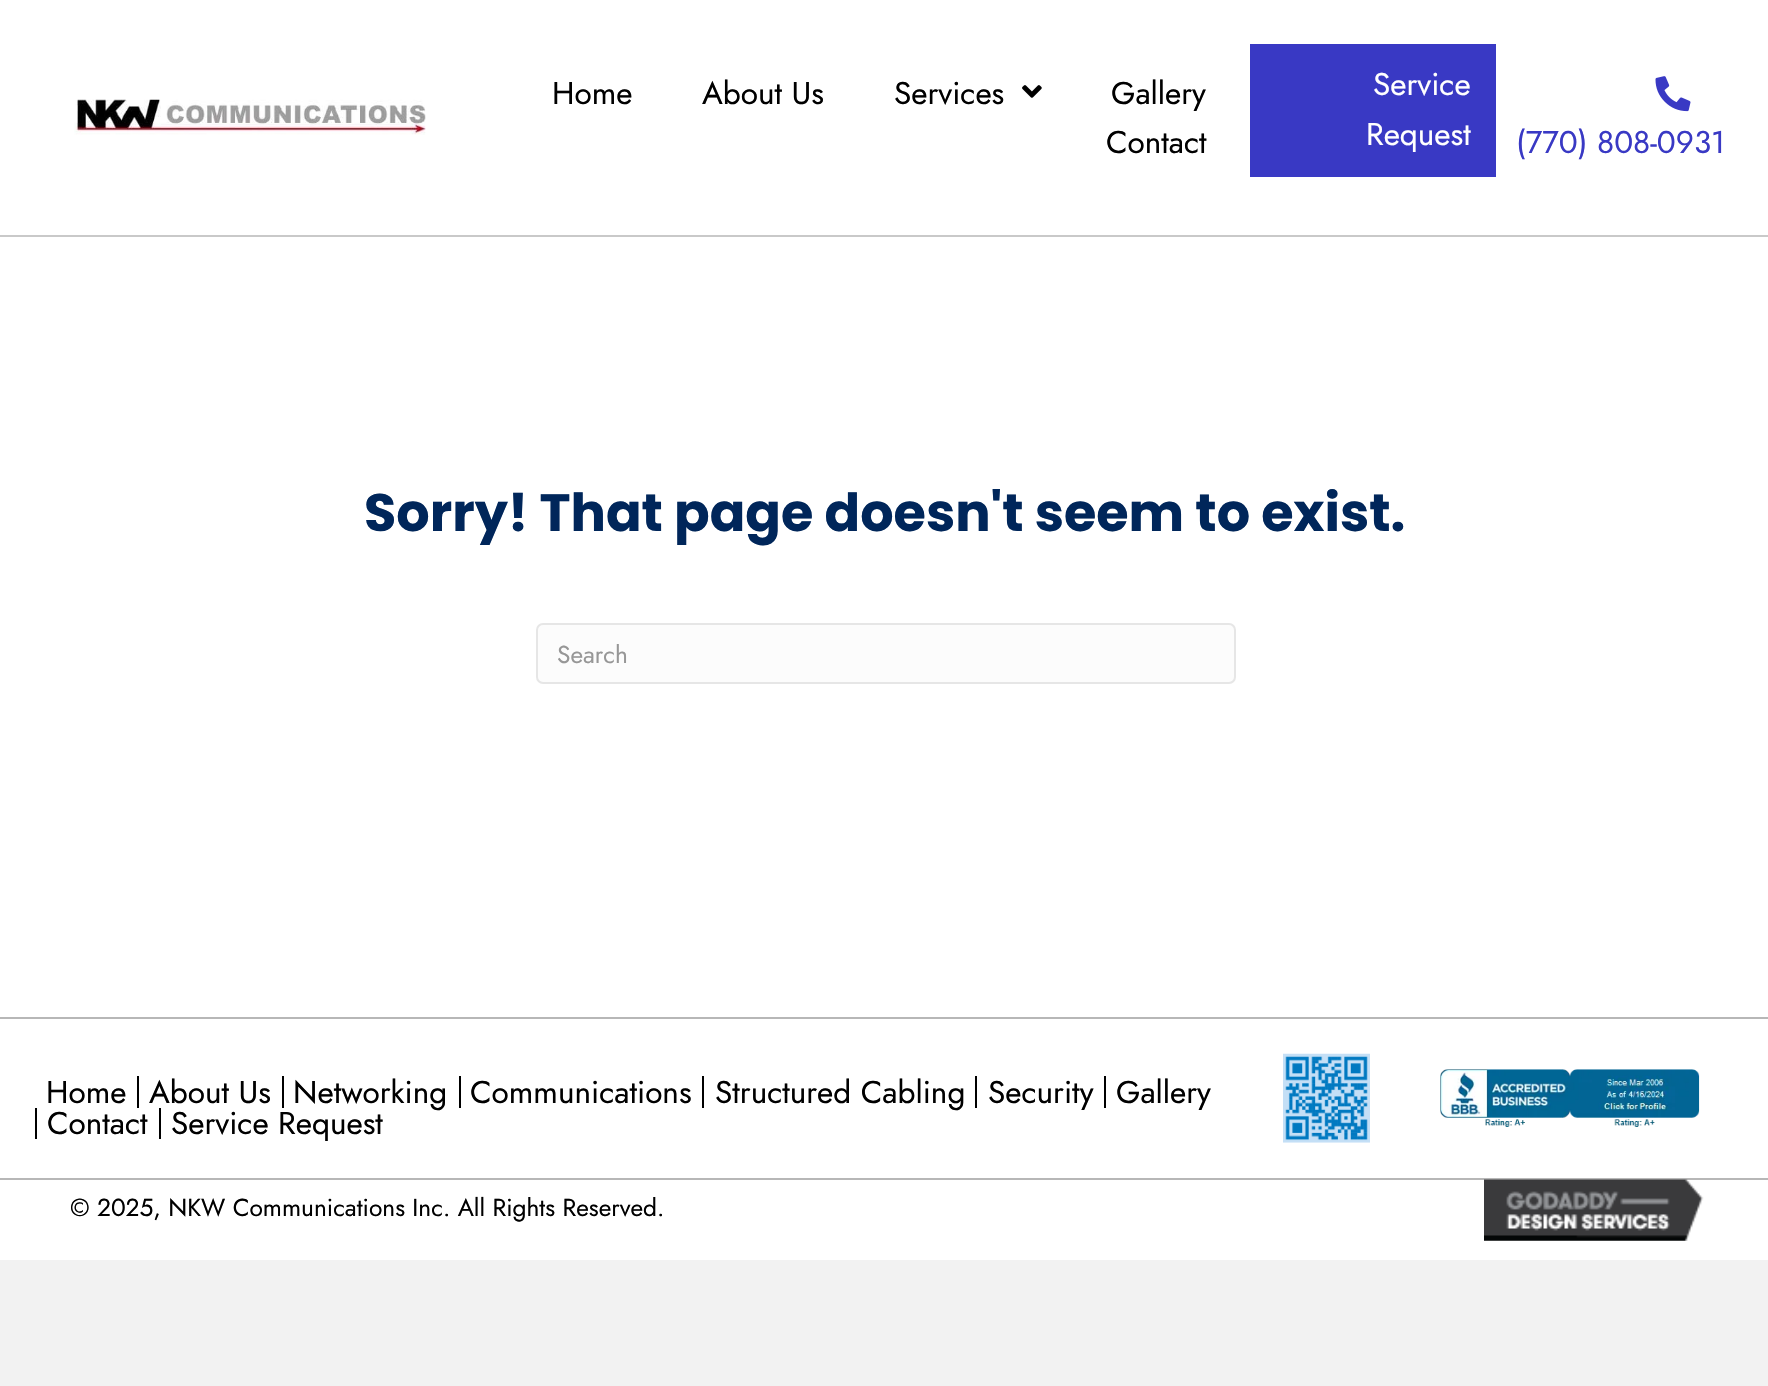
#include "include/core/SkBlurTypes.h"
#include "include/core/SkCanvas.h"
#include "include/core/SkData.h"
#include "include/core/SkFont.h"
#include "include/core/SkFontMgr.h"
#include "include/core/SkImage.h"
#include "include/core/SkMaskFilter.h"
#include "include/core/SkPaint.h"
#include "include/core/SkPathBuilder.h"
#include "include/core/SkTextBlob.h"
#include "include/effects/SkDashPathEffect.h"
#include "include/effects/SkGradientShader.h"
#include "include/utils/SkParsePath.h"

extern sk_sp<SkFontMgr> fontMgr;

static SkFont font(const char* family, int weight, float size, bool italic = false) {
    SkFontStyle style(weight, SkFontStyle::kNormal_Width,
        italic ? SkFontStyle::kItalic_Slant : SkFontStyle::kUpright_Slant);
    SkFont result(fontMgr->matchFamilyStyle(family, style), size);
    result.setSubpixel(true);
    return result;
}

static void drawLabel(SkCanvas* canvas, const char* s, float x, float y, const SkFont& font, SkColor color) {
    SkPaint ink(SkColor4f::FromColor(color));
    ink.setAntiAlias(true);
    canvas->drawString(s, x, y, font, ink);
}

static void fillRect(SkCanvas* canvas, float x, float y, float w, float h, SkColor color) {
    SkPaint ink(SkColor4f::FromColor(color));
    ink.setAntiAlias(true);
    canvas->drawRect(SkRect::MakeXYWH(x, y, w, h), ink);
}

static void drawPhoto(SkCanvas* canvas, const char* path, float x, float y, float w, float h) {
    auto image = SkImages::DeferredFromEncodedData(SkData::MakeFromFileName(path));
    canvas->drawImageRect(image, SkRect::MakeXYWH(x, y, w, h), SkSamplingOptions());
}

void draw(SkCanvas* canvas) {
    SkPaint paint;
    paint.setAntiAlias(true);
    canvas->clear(0xFFF2F2F2);
    fillRect(canvas, 0, 0, 1768, 235, 0xFFFFFFFF);
    fillRect(canvas, 0, 235, 1768, 2, 0xFFC9C9C9);
    drawPhoto(canvas, "assets/img1.png", 74, 99, 352, 36);
    SkFont font1 = font("Jost", 400, 31.5f);
    drawLabel(canvas, "Home", 552, 104, font1, 0xFF000000);
    drawLabel(canvas, "About Us", 702, 104, font1, 0xFF000000);
    drawLabel(canvas, "Services", 894, 104, font1, 0xFF000000);
    drawPhoto(canvas, "assets/img2.png", 1022, 85, 20, 13);
    drawLabel(canvas, "Gallery", 1111, 104, font1, 0xFF000000);
    drawLabel(canvas, "Contact", 1106, 153, font1, 0xFF000000);
    fillRect(canvas, 1250, 44, 246, 133, 0xFF3939C4);
    drawLabel(canvas, "Service", 1373, 95, font1, 0xFFFFFFFF);
    drawLabel(canvas, "Request", 1366, 145, font1, 0xFFFFFFFF);
    drawPhoto(canvas, "assets/img3.png", 1655, 76, 36, 36);
    drawLabel(canvas, "(770) 808-0931", 1516, 153, font1, 0xFF3939C4);
    fillRect(canvas, 0, 237, 1768, 780, 0xFFFFFFFF);
    SkFont font2 = font("Poppins", 700, 52.5f);
    drawLabel(canvas, "Sorry! That page doesn't seem to exist.", 364, 531, font2, 0xFF00265A);
    paint.setColor(0xFFFCFCFC);
    canvas->drawRoundRect(SkRect::MakeXYWH(537, 624, 698, 59), 6, 6, paint);
    paint.setStroke(true);
    paint.setStrokeWidth(2);
    paint.setColor(0xFFE6E6E6);
    canvas->drawRoundRect(SkRect::MakeXYWH(537, 624, 698, 59), 6, 6, paint);
    SkFont font3 = font("Jost", 400, 24.5f);
    drawLabel(canvas, "Search", 557, 663, font3, 0xFF979797);
    fillRect(canvas, 0, 1019, 1768, 159, 0xFFFFFFFF);
    fillRect(canvas, 0, 1017, 1768, 2, 0xFFB7B7B7);
    drawLabel(canvas, "Home", 46, 1103, font1, 0xFF000000);
    fillRect(canvas, 137, 1076, 2, 32, 0xFF000000);
    drawLabel(canvas, "About Us", 149, 1103, font1, 0xFF000000);
    fillRect(canvas, 282, 1076, 2, 32, 0xFF000000);
    drawLabel(canvas, "Networking", 293, 1103, font1, 0xFF000000);
    fillRect(canvas, 459, 1076, 2, 32, 0xFF000000);
    drawLabel(canvas, "Communications", 470, 1103, font1, 0xFF000000);
    fillRect(canvas, 702, 1076, 2, 32, 0xFF000000);
    drawLabel(canvas, "Structured Cabling", 715, 1103, font1, 0xFF000000);
    fillRect(canvas, 975, 1076, 2, 32, 0xFF000000);
    drawLabel(canvas, "Security", 988, 1103, font1, 0xFF000000);
    fillRect(canvas, 1104, 1076, 2, 32, 0xFF000000);
    drawLabel(canvas, "Gallery", 1116, 1103, font1, 0xFF000000);
    fillRect(canvas, 35, 1108, 2, 31, 0xFF000000);
    drawLabel(canvas, "Contact", 47, 1134, font1, 0xFF000000);
    fillRect(canvas, 159, 1108, 2, 31, 0xFF000000);
    drawLabel(canvas, "Service Request", 171, 1134, font1, 0xFF000000);
    drawPhoto(canvas, "assets/img4.png", 1283, 1053, 87, 90);
    drawPhoto(canvas, "assets/img5.png", 1440, 1069, 260, 58);
    fillRect(canvas, 0, 1180, 1768, 80, 0xFFFFFFFF);
    fillRect(canvas, 0, 1178, 1768, 2, 0xFFB7B7B7);
    drawLabel(canvas, "© 2025, NKW Communications Inc. All Rights Reserved.", 70, 1216, font3, 0xFF000000);
    drawPhoto(canvas, "assets/img6.png", 1484, 1179, 220, 62);
}
